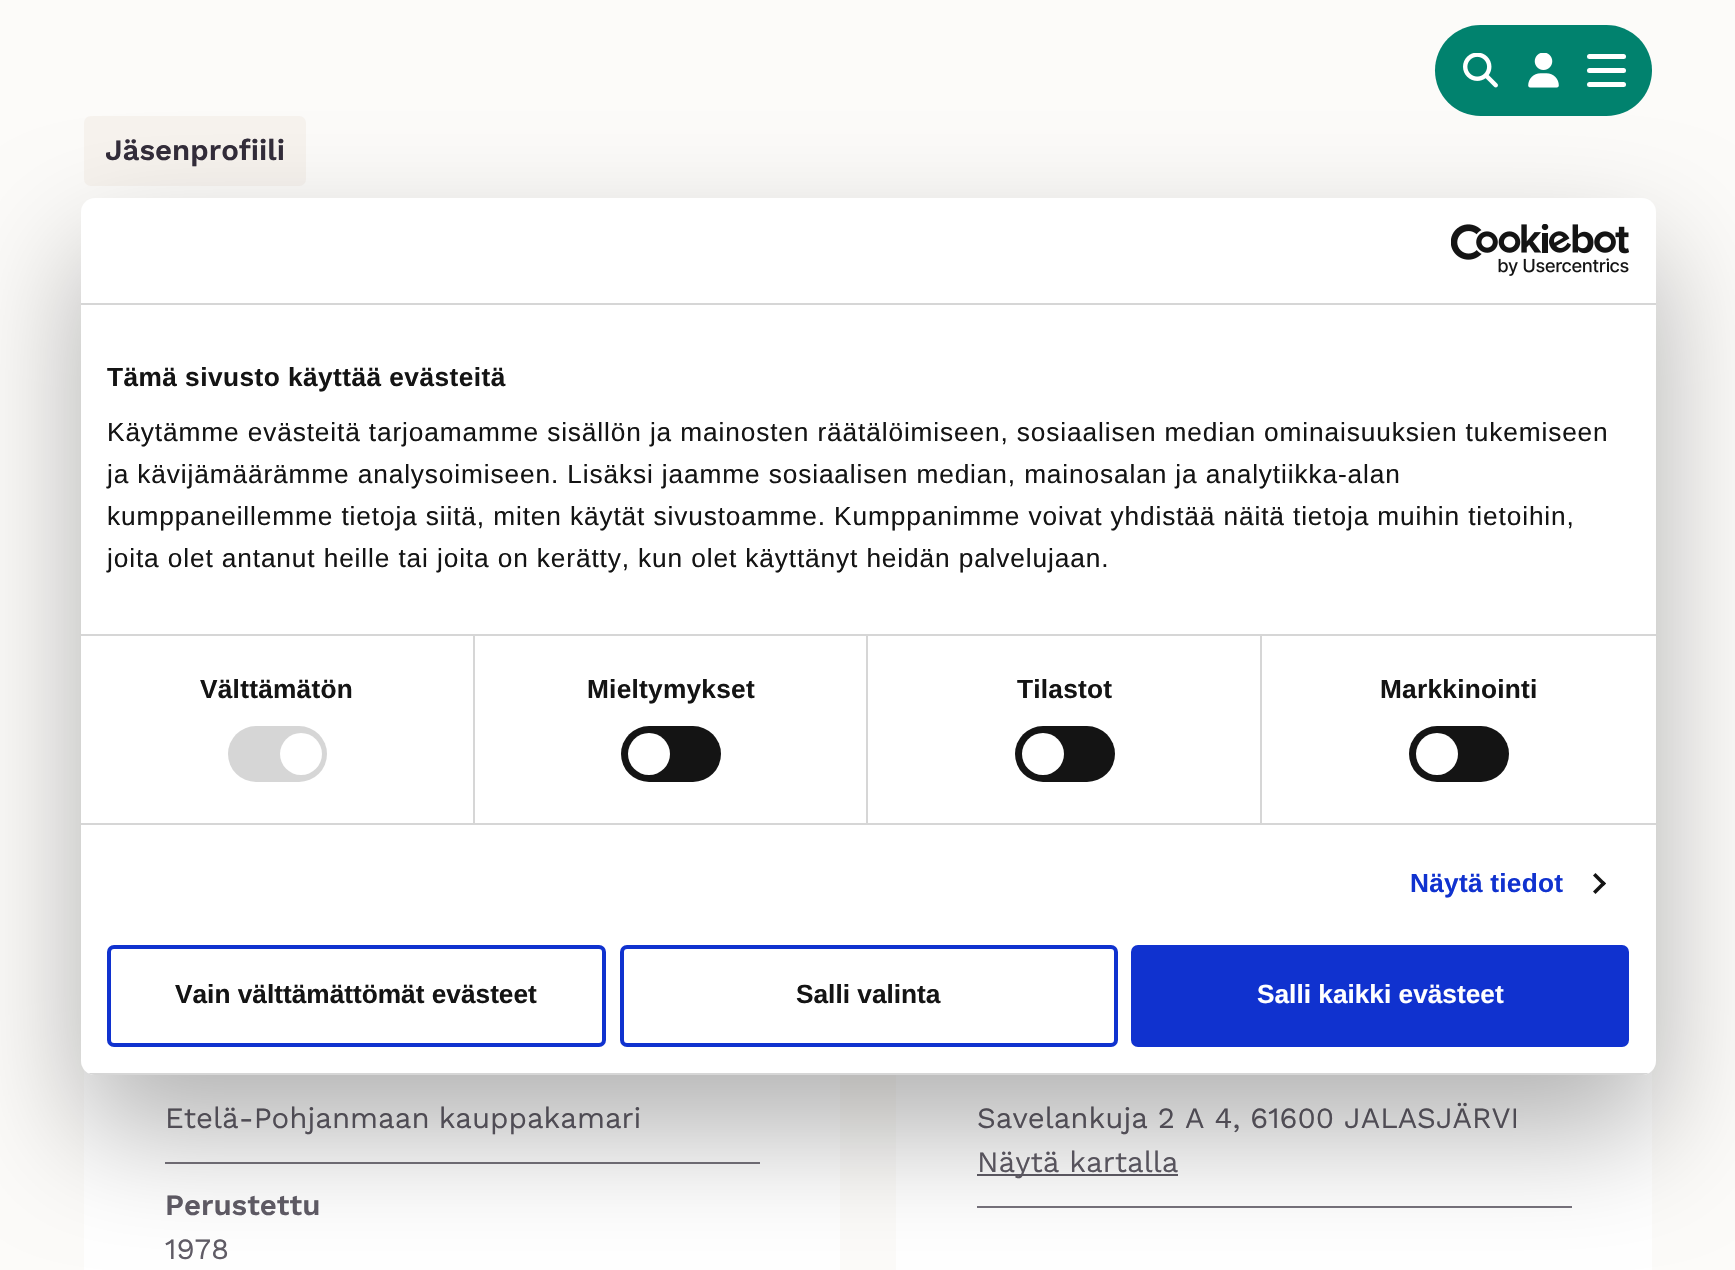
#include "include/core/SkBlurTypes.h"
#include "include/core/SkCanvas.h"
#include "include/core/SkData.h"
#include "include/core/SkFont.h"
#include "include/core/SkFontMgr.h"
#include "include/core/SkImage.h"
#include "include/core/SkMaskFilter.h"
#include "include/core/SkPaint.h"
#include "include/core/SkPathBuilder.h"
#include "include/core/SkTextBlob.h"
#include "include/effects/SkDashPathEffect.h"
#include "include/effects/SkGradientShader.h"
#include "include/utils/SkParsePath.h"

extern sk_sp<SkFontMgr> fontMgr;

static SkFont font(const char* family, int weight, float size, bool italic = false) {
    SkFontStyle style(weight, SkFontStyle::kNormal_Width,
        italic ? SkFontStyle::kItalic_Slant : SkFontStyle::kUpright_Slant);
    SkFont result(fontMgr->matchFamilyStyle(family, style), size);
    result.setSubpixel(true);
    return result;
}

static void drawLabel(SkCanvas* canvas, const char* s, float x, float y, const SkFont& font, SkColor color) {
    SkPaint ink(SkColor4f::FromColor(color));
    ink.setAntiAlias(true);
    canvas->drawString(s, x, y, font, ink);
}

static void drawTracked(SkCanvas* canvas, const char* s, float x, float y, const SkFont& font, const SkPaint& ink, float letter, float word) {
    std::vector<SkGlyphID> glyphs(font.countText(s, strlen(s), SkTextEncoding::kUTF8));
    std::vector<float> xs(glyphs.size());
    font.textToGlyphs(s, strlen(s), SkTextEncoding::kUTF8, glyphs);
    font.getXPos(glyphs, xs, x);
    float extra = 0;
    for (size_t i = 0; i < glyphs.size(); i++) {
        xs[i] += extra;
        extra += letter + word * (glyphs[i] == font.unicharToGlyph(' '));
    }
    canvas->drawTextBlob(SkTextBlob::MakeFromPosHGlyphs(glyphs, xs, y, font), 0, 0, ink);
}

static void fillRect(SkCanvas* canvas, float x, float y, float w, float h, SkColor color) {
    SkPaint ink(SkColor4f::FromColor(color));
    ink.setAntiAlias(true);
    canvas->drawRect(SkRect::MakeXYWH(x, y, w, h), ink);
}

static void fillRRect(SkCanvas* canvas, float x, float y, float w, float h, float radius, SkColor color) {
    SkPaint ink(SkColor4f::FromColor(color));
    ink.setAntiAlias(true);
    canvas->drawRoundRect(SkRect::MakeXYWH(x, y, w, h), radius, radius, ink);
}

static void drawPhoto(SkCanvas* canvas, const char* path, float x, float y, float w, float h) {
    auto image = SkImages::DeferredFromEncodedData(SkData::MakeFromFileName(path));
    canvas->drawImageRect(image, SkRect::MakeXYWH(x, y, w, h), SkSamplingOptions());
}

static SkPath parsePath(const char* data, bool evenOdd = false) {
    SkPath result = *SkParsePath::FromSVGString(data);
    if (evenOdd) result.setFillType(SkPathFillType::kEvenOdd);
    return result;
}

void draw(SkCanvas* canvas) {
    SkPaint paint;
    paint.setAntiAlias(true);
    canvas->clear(0xFFFCFBF9);
    fillRRect(canvas, 1435, 25, 217, 91, 45.5f, 0xFF01826E);
    drawPhoto(canvas, "assets/img1.png", 1463, 53, 35, 35);
    drawPhoto(canvas, "assets/img2.png", 1528, 53, 31, 35);
    fillRRect(canvas, 1587, 54, 39, 5, 2.5f, 0xFFFFFFFF);
    fillRRect(canvas, 1587, 68, 39, 5, 2.5f, 0xFFFFFFFF);
    fillRRect(canvas, 1587, 82, 39, 5, 2.5f, 0xFFFFFFFF);
    fillRRect(canvas, 84, 116, 222, 70, 7, 0xFFF7F3EE);
    SkFont font1 = font("Work Sans", 600, 29.4f);
    drawLabel(canvas, "Jäsenprofiili", 105, 160, font1, 0xFF332D3A);
    fillRect(canvas, 84, 1069, 756, 201, 0xFFFFFFFF);
    fillRect(canvas, 165, 1162, 595, 2, 0xFF77737C);
    SkFont font2 = font("Work Sans", 400, 29.4f);
    paint.setColor(0xFF605C66);
    drawTracked(canvas, "Etelä-Pohjanmaan kauppakamari", 165, 1128, font2, paint, 0, -1);
    drawLabel(canvas, "Perustettu", 165, 1215, font1, 0xFF605C66);
    drawLabel(canvas, "1978", 165, 1259, font2, 0xFF605C66);
    fillRect(canvas, 896, 1070, 756, 200, 0xFFFFFFFF);
    fillRect(canvas, 977, 1206, 595, 2, 0xFF77737C);
    drawLabel(canvas, "Savelankuja 2 A 4, 61600 JALASJÄRVI", 977, 1128, font2, 0xFF605C66);
    fillRect(canvas, 977, 1174, 201, 2, 0xFF605C66);
    drawLabel(canvas, "Näytä kartalla", 977, 1172, font2, 0xFF605C66);
    paint.setColor(0x4D000000);
    paint.setMaskFilter(SkMaskFilter::MakeBlur(kNormal_SkBlurStyle, 59.5f));
    canvas->drawRoundRect(SkRect::MakeXYWH(81, 254, 1575, 877), 14, 14, paint);
    paint.setMaskFilter(nullptr);
    fillRRect(canvas, 81, 198, 1575, 877, 14, 0xFFFFFFFF);
    fillRect(canvas, 81, 303, 1575, 2, 0xFFD6D6D6);
    drawPhoto(canvas, "assets/img3.png", 1451, 224, 178, 52);
    fillRect(canvas, 473, 635, 2, 188, 0xFFD6D6D6);
    fillRect(canvas, 866, 635, 2, 188, 0xFFD6D6D6);
    fillRect(canvas, 1260, 635, 2, 188, 0xFFD6D6D6);
    fillRect(canvas, 81, 634, 1575, 2, 0xFFD6D6D6);
    SkFont font3 = font("Liberation Sans", 700, 26.25f);
    paint.setColor(0xFF141414);
    drawTracked(canvas, "Tämä sivusto käyttää evästeitä", 107, 386, font3, paint, 0.45f, 0);
    SkFont font4 = font("Liberation Sans", 400, 26.25f);
    drawTracked(canvas, "Käytämme evästeitä tarjoamamme sisällön ja mainosten räätälöimiseen, sosiaalisen median ominaisuuksien tukemiseen", 107, 441, font4, paint, 0.88f, 0);
    drawTracked(canvas, "ja kävijämäärämme analysoimiseen. Lisäksi jaamme sosiaalisen median, mainosalan ja analytiikka-alan", 107, 483, font4, paint, 0.88f, 0);
    drawTracked(canvas, "kumppaneillemme tietoja siitä, miten käytät sivustoamme. Kumppanimme voivat yhdistää näitä tietoja muihin tietoihin,", 107, 525, font4, paint, 0.88f, 0);
    drawTracked(canvas, "joita olet antanut heille tai joita on kerätty, kun olet käyttänyt heidän palvelujaan.", 107, 567, font4, paint, 0.88f, 0);
    fillRect(canvas, 81, 823, 1575, 2, 0xFFD6D6D6);
    drawTracked(canvas, "Välttämätön", 200, 698, font3, paint, 0.25f, 0);
    fillRRect(canvas, 228, 726, 99, 56, 28, 0xFFD6D6D6);
    paint.setColor(0xFFFFFFFF);
    canvas->drawCircle(301, 754, 21, paint);
    paint.setColor(0xFF141414);
    drawTracked(canvas, "Mieltymykset", 587, 698, font3, paint, 0.25f, 0);
    fillRRect(canvas, 621, 726, 100, 56, 28, 0xFF141414);
    paint.setColor(0xFFFFFFFF);
    canvas->drawCircle(649, 754, 21, paint);
    paint.setColor(0xFF141414);
    drawTracked(canvas, "Tilastot", 1017, 698, font3, paint, 0.25f, 0);
    fillRRect(canvas, 1015, 726, 100, 56, 28, 0xFF141414);
    paint.setColor(0xFFFFFFFF);
    canvas->drawCircle(1043, 754, 21, paint);
    paint.setColor(0xFF141414);
    drawTracked(canvas, "Markkinointi", 1380, 698, font3, paint, 0.25f, 0);
    fillRRect(canvas, 1409, 726, 100, 56, 28, 0xFF141414);
    paint.setColor(0xFFFFFFFF);
    canvas->drawCircle(1437, 754, 21, paint);
    paint.setColor(0xFF1032CF);
    drawTracked(canvas, "Näytä tiedot", 1410, 892, font3, paint, 0.25f, 0);
    paint.setColor(0xFF141414);
    canvas->drawPath(parsePath("M1595.5 873L1606 883.5L1603.5 886L1593 875.5Z"), paint);
    canvas->drawPath(parsePath("M1603.5 881L1606 883.5L1595.5 894L1593 891.5Z"), paint);
    canvas->save();
    canvas->clipPath(parsePath("M95 198H1642C1649.5 198 1656 204.5 1656 212V1061C1656 1068.5 1649.5 1075 1642 1075H95C87.5 1075 81 1068.5 81 1061V212C81 204.5 87.5 198 95 198Z"), true);
    fillRect(canvas, 81, 1073, 1575, 2, 0xFFD6D6D6);
    canvas->restore();
    paint.setStroke(true);
    paint.setStrokeWidth(4);
    paint.setColor(0xFF1032CF);
    canvas->drawRoundRect(SkRect::MakeXYWH(109, 947, 495, 98), 5, 5, paint);
    drawLabel(canvas, "Vain välttämättömät evästeet", 175, 1003, font3, 0xFF141414);
    canvas->drawRoundRect(SkRect::MakeXYWH(622, 947, 494, 98), 5, 5, paint);
    drawLabel(canvas, "Salli valinta", 796, 1003, font3, 0xFF141414);
    paint.setStroke(false);
    canvas->drawRoundRect(SkRect::MakeXYWH(1133, 947, 494, 98), 5, 5, paint);
    paint.setStroke(true);
    canvas->drawRoundRect(SkRect::MakeXYWH(1133, 947, 494, 98), 5, 5, paint);
    drawLabel(canvas, "Salli kaikki evästeet", 1257, 1003, font3, 0xFFFFFFFF);
}
